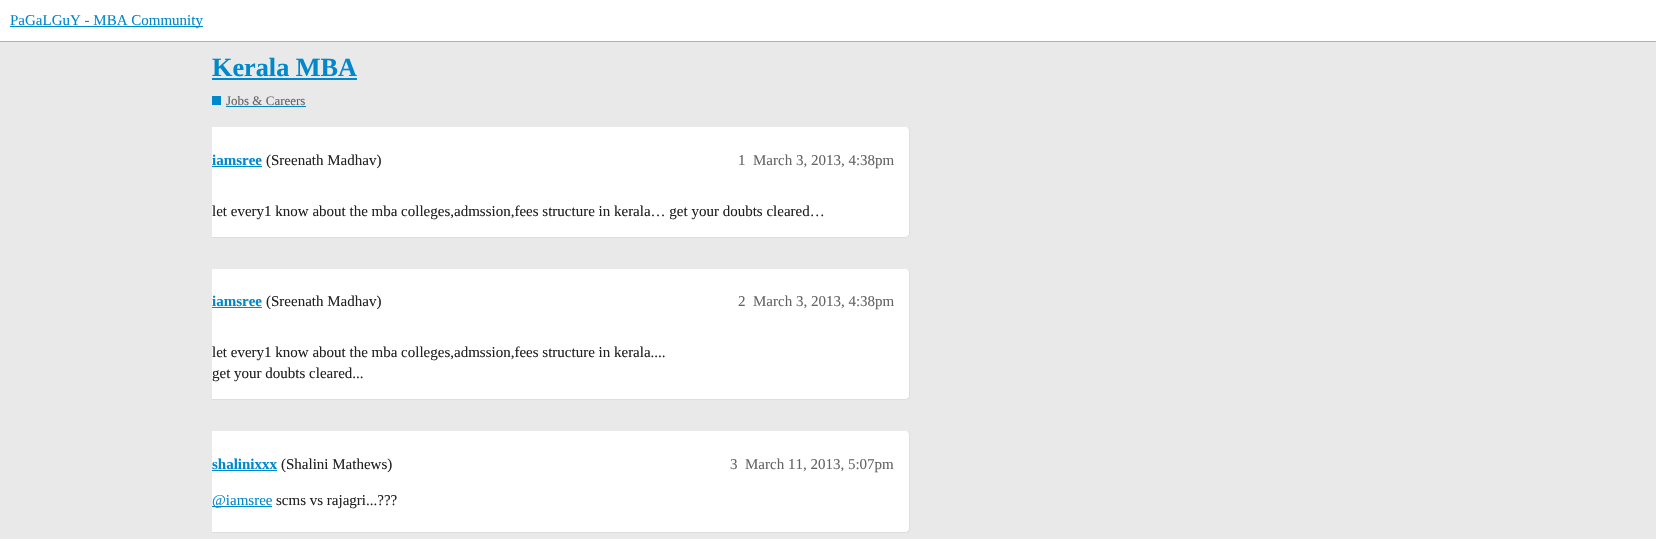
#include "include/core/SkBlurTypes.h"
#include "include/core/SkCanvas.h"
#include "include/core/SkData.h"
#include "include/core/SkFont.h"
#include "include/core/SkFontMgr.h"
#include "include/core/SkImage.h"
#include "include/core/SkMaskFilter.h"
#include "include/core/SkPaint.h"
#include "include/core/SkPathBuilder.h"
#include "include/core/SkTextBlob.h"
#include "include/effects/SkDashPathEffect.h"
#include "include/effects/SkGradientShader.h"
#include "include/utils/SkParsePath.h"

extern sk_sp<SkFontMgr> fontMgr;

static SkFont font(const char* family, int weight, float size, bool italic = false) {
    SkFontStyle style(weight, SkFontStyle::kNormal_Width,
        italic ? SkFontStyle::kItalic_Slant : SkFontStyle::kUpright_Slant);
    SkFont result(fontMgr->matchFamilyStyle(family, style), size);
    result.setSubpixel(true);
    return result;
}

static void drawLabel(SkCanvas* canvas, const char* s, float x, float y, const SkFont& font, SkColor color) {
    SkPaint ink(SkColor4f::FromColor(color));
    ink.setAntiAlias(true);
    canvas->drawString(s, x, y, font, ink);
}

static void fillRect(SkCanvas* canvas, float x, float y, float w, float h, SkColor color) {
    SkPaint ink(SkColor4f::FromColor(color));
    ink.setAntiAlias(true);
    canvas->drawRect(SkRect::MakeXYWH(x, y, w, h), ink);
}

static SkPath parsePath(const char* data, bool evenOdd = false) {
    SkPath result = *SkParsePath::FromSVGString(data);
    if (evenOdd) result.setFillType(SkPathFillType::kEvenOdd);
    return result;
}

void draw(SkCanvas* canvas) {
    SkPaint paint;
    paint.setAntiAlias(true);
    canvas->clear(0xFFE9E9E9);
    fillRect(canvas, 0, 0, 1656, 41, 0xFFFFFFFF);
    fillRect(canvas, 0, 41, 1656, 1, 0xFFAFAFAF);
    fillRect(canvas, 10, 26, 193, 1, 0xFF0088CC);
    SkFont font1 = font("Liberation Serif", 400, 15);
    drawLabel(canvas, "PaGaLGuY - MBA Community", 10, 25, font1, 0xFF0088CC);
    SkFont font2 = font("Liberation Serif", 700, 26.25f);
    drawLabel(canvas, "Kerala MBA", 212, 76, font2, 0xFF0088CC);
    fillRect(canvas, 212, 78, 145, 2, 0xFF0088CC);
    fillRect(canvas, 212, 96, 9, 9, 0xFF0088CC);
    SkFont font3 = font("Liberation Serif", 400, 13);
    drawLabel(canvas, "Jobs & Careers", 226, 105, font3, 0xFF646464);
    fillRect(canvas, 226, 106, 80, 1, 0xFF0088CC);
    paint.setColor(0xFFFFFFFF);
    canvas->drawPath(parsePath("M212 126H906C908 126 910 128 910 130V234C910 236 908 238 906 238H212Z"), paint);
    paint.setColor(0xFFE9E9E9);
    canvas->drawPath(parsePath("M212 126V127H906L908 128L909 127L906 126Z"), paint);
    paint.setColor(0x26222222);
    canvas->drawPath(parsePath("M908 236L909 234V130L908 128L909 127L910 130V234L909 237Z"), paint);
    canvas->drawPath(parsePath("M212 237V238H906L909 237L908 236L906 237Z"), paint);
    SkFont font4 = font("Liberation Serif", 700, 15);
    drawLabel(canvas, "iamsree", 212, 165, font4, 0xFF0088CC);
    fillRect(canvas, 212, 166, 50, 1, 0xFF0088CC);
    drawLabel(canvas, "(Sreenath Madhav)", 266, 165, font1, 0xFF222222);
    drawLabel(canvas, "1", 738, 165, font1, 0xFF646464);
    drawLabel(canvas, "March 3, 2013, 4:38pm", 753, 165, font1, 0xFF646464);
    drawLabel(canvas, "let every1 know about the mba colleges,admssion,fees structure in kerala… get your doubts cleared…", 212, 216, font1, 0xFF222222);
    paint.setColor(0xFFFFFFFF);
    canvas->drawPath(parsePath("M212 268H906C908 268 910 270 910 272V396C910 398 908 400 906 400H212Z"), paint);
    paint.setColor(0xFFE9E9E9);
    canvas->drawPath(parsePath("M212 268V269H906L908 270L909 269L906 268Z"), paint);
    paint.setColor(0x26222222);
    canvas->drawPath(parsePath("M908 398L909 396V272L908 270L909 269L910 272V396L909 399Z"), paint);
    canvas->drawPath(parsePath("M212 399V400H906L909 399L908 398L906 399Z"), paint);
    drawLabel(canvas, "iamsree", 212, 306, font4, 0xFF0088CC);
    fillRect(canvas, 212, 307, 50, 1, 0xFF0088CC);
    drawLabel(canvas, "(Sreenath Madhav)", 266, 306, font1, 0xFF222222);
    drawLabel(canvas, "2", 738, 306, font1, 0xFF646464);
    drawLabel(canvas, "March 3, 2013, 4:38pm", 753, 306, font1, 0xFF646464);
    drawLabel(canvas, "let every1 know about the mba colleges,admssion,fees structure in kerala....", 212, 357, font1, 0xFF222222);
    drawLabel(canvas, "get your doubts cleared...", 212, 378, font1, 0xFF222222);
    paint.setColor(0xFFFFFFFF);
    canvas->drawPath(parsePath("M212 430H906C908 430 910 432 910 434V529C910 531 908 533 906 533H212Z"), paint);
    paint.setColor(0xFFE9E9E9);
    canvas->drawPath(parsePath("M212 430V431H906L908 432L909 431L906 430Z"), paint);
    paint.setColor(0x26222222);
    canvas->drawPath(parsePath("M908 531L909 529V434L908 432L909 431L910 434V529L909 532Z"), paint);
    canvas->drawPath(parsePath("M212 532V533H906L909 532L908 531L906 532Z"), paint);
    drawLabel(canvas, "shalinixxx", 212, 469, font4, 0xFF0088CC);
    fillRect(canvas, 212, 470, 65, 1, 0xFF0088CC);
    drawLabel(canvas, "(Shalini Mathews)", 281, 469, font1, 0xFF222222);
    drawLabel(canvas, "3", 730, 469, font1, 0xFF646464);
    drawLabel(canvas, "March 11, 2013, 5:07pm", 745, 469, font1, 0xFF646464);
    fillRect(canvas, 212, 506, 60, 1, 0xFF0088CC);
    drawLabel(canvas, "@iamsree", 212, 505, font1, 0xFF0088CC);
    drawLabel(canvas, "scms vs rajagri...?\077?", 276, 505, font1, 0xFF222222);
}
